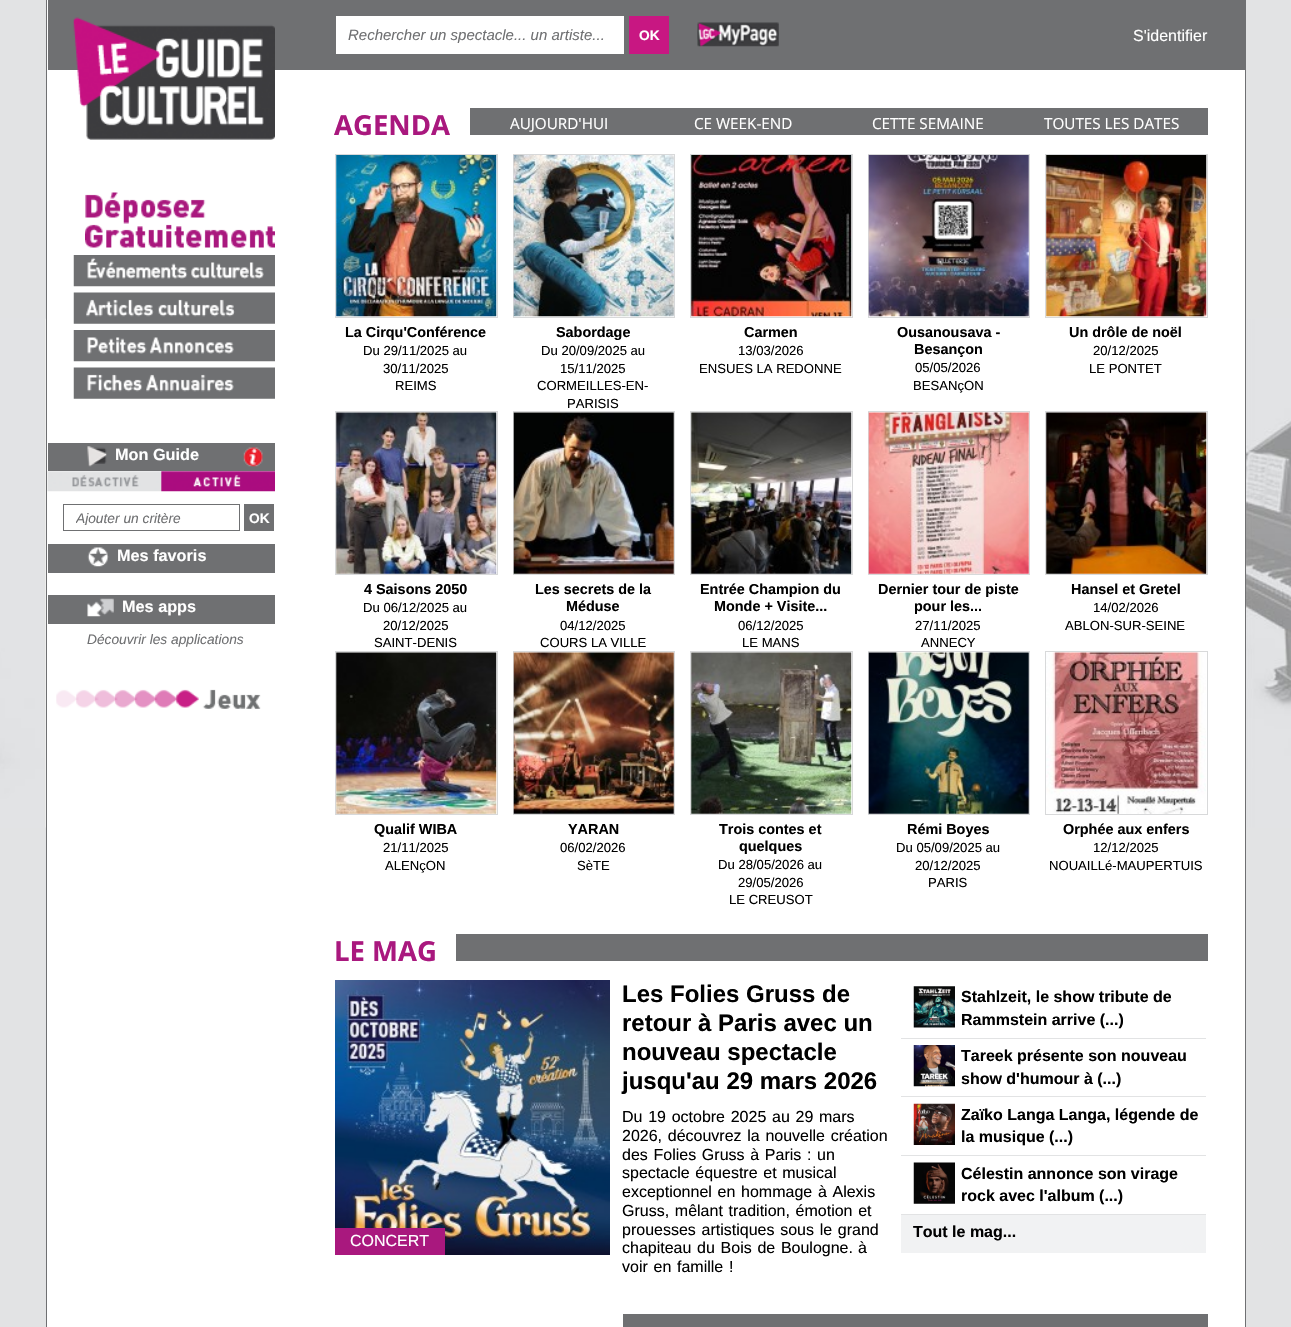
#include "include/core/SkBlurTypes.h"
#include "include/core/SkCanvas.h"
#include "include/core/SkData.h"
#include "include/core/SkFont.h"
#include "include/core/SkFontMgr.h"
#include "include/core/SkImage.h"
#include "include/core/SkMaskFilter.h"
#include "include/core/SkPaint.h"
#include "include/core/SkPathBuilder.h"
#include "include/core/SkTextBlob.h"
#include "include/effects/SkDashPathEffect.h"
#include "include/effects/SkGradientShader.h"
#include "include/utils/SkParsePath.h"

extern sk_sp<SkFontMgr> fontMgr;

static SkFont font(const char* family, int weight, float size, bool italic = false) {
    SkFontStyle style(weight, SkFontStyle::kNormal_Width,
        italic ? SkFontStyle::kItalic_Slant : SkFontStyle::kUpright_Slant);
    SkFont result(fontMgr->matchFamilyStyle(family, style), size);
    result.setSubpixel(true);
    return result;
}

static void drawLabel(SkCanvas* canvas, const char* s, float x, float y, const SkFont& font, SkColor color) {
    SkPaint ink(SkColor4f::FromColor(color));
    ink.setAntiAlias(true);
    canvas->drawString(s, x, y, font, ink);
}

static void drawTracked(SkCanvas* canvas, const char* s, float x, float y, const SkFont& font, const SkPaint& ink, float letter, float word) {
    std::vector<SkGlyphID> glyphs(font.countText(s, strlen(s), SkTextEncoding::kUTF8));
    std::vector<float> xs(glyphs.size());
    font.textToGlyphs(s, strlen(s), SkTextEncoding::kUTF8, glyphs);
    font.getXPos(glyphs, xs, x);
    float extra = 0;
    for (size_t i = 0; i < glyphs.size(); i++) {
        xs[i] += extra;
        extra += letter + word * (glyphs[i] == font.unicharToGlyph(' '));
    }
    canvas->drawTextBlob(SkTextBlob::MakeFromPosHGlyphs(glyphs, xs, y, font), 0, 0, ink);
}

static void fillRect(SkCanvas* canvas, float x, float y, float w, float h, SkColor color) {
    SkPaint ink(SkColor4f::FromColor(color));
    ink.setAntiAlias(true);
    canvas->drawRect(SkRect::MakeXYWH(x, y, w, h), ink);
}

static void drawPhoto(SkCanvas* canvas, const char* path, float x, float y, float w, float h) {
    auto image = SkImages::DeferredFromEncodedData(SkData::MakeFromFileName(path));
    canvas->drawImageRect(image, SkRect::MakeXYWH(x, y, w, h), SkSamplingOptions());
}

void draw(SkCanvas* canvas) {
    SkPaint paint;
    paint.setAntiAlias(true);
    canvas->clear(0xFFE2E3E4);
    drawPhoto(canvas, "assets/img1.png", 0, 318, 1291, 510);
    fillRect(canvas, 47, 0, 1198, 1327, 0xFFFFFFFF);
    fillRect(canvas, 1245, 0, 1, 1327, 0xFF6F7072);
    fillRect(canvas, 46, 0, 1, 1327, 0xFF6F7072);
    fillRect(canvas, 48, 0, 1197, 70, 0xFF6F7072);
    drawPhoto(canvas, "assets/img2.png", 73, 17, 202, 123);
    drawPhoto(canvas, "assets/img3.png", 85, 192, 190, 56);
    drawPhoto(canvas, "assets/img4.png", 73, 255, 202, 32);
    drawPhoto(canvas, "assets/img5.png", 73, 292, 202, 32);
    drawPhoto(canvas, "assets/img6.png", 73, 330, 202, 32);
    drawPhoto(canvas, "assets/img7.png", 73, 367, 202, 32);
    fillRect(canvas, 48, 443, 227, 28, 0xFF6F7072);
    drawPhoto(canvas, "assets/img8.png", 87, 446, 20, 21);
    SkFont font1 = font("Liberation Sans", 700, 16.25f);
    drawLabel(canvas, "Mon Guide", 115, 460, font1, 0xFFFFFFFF);
    drawPhoto(canvas, "assets/img9.png", 243, 447, 20, 20);
    drawPhoto(canvas, "assets/img10.png", 47, 471, 228, 21);
    paint.setStroke(true);
    paint.setStrokeWidth(1);
    paint.setColor(0xFF6F7072);
    canvas->drawRect(SkRect::MakeXYWH(63.5f, 504.5f, 176, 26), paint);
    canvas->save();
    canvas->clipRect(SkRect::MakeXYWH(76, 510, 163, 15));
    SkFont font2 = font("Liberation Sans", 400, 13.75f, true);
    drawLabel(canvas, "Ajouter un critère", 76, 523, font2, 0xFF6F7072);
    canvas->restore();
    fillRect(canvas, 244, 504, 30, 27, 0xFF6F7072);
    SkFont font3 = font("Liberation Sans", 700, 13.75f);
    drawLabel(canvas, "OK", 249, 523, font3, 0xFFFFFFFF);
    fillRect(canvas, 48, 544, 227, 29, 0xFF6F7072);
    drawPhoto(canvas, "assets/img11.png", 87, 547, 22, 20);
    drawLabel(canvas, "Mes favoris", 117, 561, font1, 0xFFFFFFFF);
    fillRect(canvas, 48, 595, 227, 29, 0xFF6F7072);
    drawPhoto(canvas, "assets/img12.png", 87, 598, 27, 19);
    drawLabel(canvas, "Mes apps", 122, 612, font1, 0xFFFFFFFF);
    drawLabel(canvas, "Découvrir les applications", 87, 644, font2, 0xFF6F7072);
    drawPhoto(canvas, "assets/img13.png", 56, 689, 205, 20);
    fillRect(canvas, 336, 16, 288, 38, 0xFFFFFFFF);
    SkFont font4 = font("Liberation Sans", 400, 15, true);
    drawLabel(canvas, "Rechercher un spectacle... un artiste...", 348, 40, font4, 0xFF6F7072);
    fillRect(canvas, 629, 16, 40, 38, 0xFFC81782);
    drawLabel(canvas, "OK", 639, 40, font3, 0xFFFFFFFF);
    drawPhoto(canvas, "assets/img14.png", 697, 22, 82, 25);
    SkFont font5 = font("Liberation Sans", 400, 16);
    drawLabel(canvas, "S'identifier", 1133, 41, font5, 0xFFFFFFFF);
    SkFont font6 = font("Open Sans", 700, 27.5f);
    drawLabel(canvas, "AGENDA", 334, 135, font6, 0xFFA9187E);
    fillRect(canvas, 470, 108, 738, 27, 0xFF6F7072);
    SkFont font7 = font("Open Sans", 400, 15.25f);
    drawLabel(canvas, "AUJOURD'HUI", 510, 129, font7, 0xFFFFFFFF);
    drawLabel(canvas, "CE WEEK-END", 694, 129, font7, 0xFFFFFFFF);
    drawLabel(canvas, "CETTE SEMAINE", 872, 129, font7, 0xFFFFFFFF);
    drawLabel(canvas, "TOUTES LES DATES", 1044, 129, font7, 0xFFFFFFFF);
    paint.setColor(0xFFD8D9DA);
    canvas->drawRect(SkRect::MakeXYWH(335.5f, 154.5f, 162, 163), paint);
    drawPhoto(canvas, "assets/img15.png", 336, 155, 161, 162);
    SkFont font8 = font("Liberation Sans", 700, 14.4f);
    drawLabel(canvas, "La Cirqu'Conférence", 345, 337, font8, 0xFF000000);
    SkFont font9 = font("Liberation Sans", 400, 13.1f);
    drawLabel(canvas, "Du 29/11/2025 au", 363, 355, font9, 0xFF000000);
    drawLabel(canvas, "30/11/2025", 383, 373, font9, 0xFF000000);
    drawLabel(canvas, "REIMS", 395, 390, font9, 0xFF000000);
    canvas->drawRect(SkRect::MakeXYWH(513.5f, 154.5f, 161, 163), paint);
    drawPhoto(canvas, "assets/img16.png", 513, 155, 161, 162);
    drawLabel(canvas, "Sabordage", 556, 337, font8, 0xFF000000);
    drawLabel(canvas, "Du 20/09/2025 au", 541, 355, font9, 0xFF000000);
    drawLabel(canvas, "15/11/2025", 560, 373, font9, 0xFF000000);
    drawLabel(canvas, "CORMEILLES-EN-", 537, 390, font9, 0xFF000000);
    drawLabel(canvas, "PARISIS", 567, 408, font9, 0xFF000000);
    canvas->drawRect(SkRect::MakeXYWH(690.5f, 154.5f, 162, 163), paint);
    drawPhoto(canvas, "assets/img17.png", 691, 155, 161, 162);
    drawLabel(canvas, "Carmen", 744, 337, font8, 0xFF000000);
    drawLabel(canvas, "13/03/2026", 738, 355, font9, 0xFF000000);
    drawLabel(canvas, "ENSUES LA REDONNE", 699, 373, font9, 0xFF000000);
    canvas->drawRect(SkRect::MakeXYWH(868.5f, 154.5f, 161, 163), paint);
    drawPhoto(canvas, "assets/img18.png", 868, 155, 161, 162);
    drawLabel(canvas, "Ousanousava -", 897, 337, font8, 0xFF000000);
    drawLabel(canvas, "Besançon", 914, 354, font8, 0xFF000000);
    drawLabel(canvas, "05/05/2026", 915, 372, font9, 0xFF000000);
    drawLabel(canvas, "BESANçON", 913, 390, font9, 0xFF000000);
    canvas->drawRect(SkRect::MakeXYWH(1045.5f, 154.5f, 162, 163), paint);
    drawPhoto(canvas, "assets/img19.png", 1046, 155, 161, 162);
    drawLabel(canvas, "Un drôle de noël", 1069, 337, font8, 0xFF000000);
    drawLabel(canvas, "20/12/2025", 1093, 355, font9, 0xFF000000);
    drawLabel(canvas, "LE PONTET", 1089, 373, font9, 0xFF000000);
    canvas->drawRect(SkRect::MakeXYWH(335.5f, 411.5f, 162, 163), paint);
    drawPhoto(canvas, "assets/img20.png", 336, 412, 161, 162);
    drawLabel(canvas, "4 Saisons 2050", 364, 594, font8, 0xFF000000);
    drawLabel(canvas, "Du 06/12/2025 au", 363, 612, font9, 0xFF000000);
    drawLabel(canvas, "20/12/2025", 383, 630, font9, 0xFF000000);
    drawLabel(canvas, "SAINT-DENIS", 374, 647, font9, 0xFF000000);
    canvas->drawRect(SkRect::MakeXYWH(513.5f, 411.5f, 161, 163), paint);
    drawPhoto(canvas, "assets/img21.png", 513, 412, 161, 162);
    drawLabel(canvas, "Les secrets de la", 535, 594, font8, 0xFF000000);
    drawLabel(canvas, "Méduse", 566, 611, font8, 0xFF000000);
    drawLabel(canvas, "04/12/2025", 560, 630, font9, 0xFF000000);
    drawLabel(canvas, "COURS LA VILLE", 540, 647, font9, 0xFF000000);
    canvas->drawRect(SkRect::MakeXYWH(690.5f, 411.5f, 162, 163), paint);
    drawPhoto(canvas, "assets/img22.png", 691, 412, 161, 162);
    drawLabel(canvas, "Entrée Champion du", 700, 594, font8, 0xFF000000);
    drawLabel(canvas, "Monde + Visite...", 714, 611, font8, 0xFF000000);
    drawLabel(canvas, "06/12/2025", 738, 630, font9, 0xFF000000);
    drawLabel(canvas, "LE MANS", 742, 647, font9, 0xFF000000);
    canvas->drawRect(SkRect::MakeXYWH(868.5f, 411.5f, 161, 163), paint);
    drawPhoto(canvas, "assets/img23.png", 868, 412, 161, 162);
    drawLabel(canvas, "Dernier tour de piste", 878, 594, font8, 0xFF000000);
    drawLabel(canvas, "pour les...", 914, 611, font8, 0xFF000000);
    drawLabel(canvas, "27/11/2025", 915, 630, font9, 0xFF000000);
    drawLabel(canvas, "ANNECY", 921, 647, font9, 0xFF000000);
    canvas->drawRect(SkRect::MakeXYWH(1045.5f, 411.5f, 162, 163), paint);
    drawPhoto(canvas, "assets/img24.png", 1046, 412, 161, 162);
    drawLabel(canvas, "Hansel et Gretel", 1071, 594, font8, 0xFF000000);
    drawLabel(canvas, "14/02/2026", 1093, 612, font9, 0xFF000000);
    drawLabel(canvas, "ABLON-SUR-SEINE", 1065, 630, font9, 0xFF000000);
    canvas->drawRect(SkRect::MakeXYWH(335.5f, 651.5f, 162, 163), paint);
    drawPhoto(canvas, "assets/img25.png", 336, 652, 161, 162);
    drawLabel(canvas, "Qualif WIBA", 374, 834, font8, 0xFF000000);
    drawLabel(canvas, "21/11/2025", 383, 852, font9, 0xFF000000);
    drawLabel(canvas, "ALENçON", 385, 870, font9, 0xFF000000);
    canvas->drawRect(SkRect::MakeXYWH(513.5f, 651.5f, 161, 163), paint);
    drawPhoto(canvas, "assets/img26.png", 513, 652, 161, 162);
    drawLabel(canvas, "YARAN", 568, 834, font8, 0xFF000000);
    drawLabel(canvas, "06/02/2026", 560, 852, font9, 0xFF000000);
    drawLabel(canvas, "SèTE", 577, 870, font9, 0xFF000000);
    canvas->drawRect(SkRect::MakeXYWH(690.5f, 651.5f, 162, 163), paint);
    drawPhoto(canvas, "assets/img27.png", 691, 652, 161, 162);
    drawLabel(canvas, "Trois contes et", 719, 834, font8, 0xFF000000);
    drawLabel(canvas, "quelques", 739, 851, font8, 0xFF000000);
    drawLabel(canvas, "Du 28/05/2026 au", 718, 869, font9, 0xFF000000);
    drawLabel(canvas, "29/05/2026", 738, 887, font9, 0xFF000000);
    drawLabel(canvas, "LE CREUSOT", 729, 904, font9, 0xFF000000);
    canvas->drawRect(SkRect::MakeXYWH(868.5f, 651.5f, 161, 163), paint);
    drawPhoto(canvas, "assets/img28.png", 868, 652, 161, 162);
    drawLabel(canvas, "Rémi Boyes", 907, 834, font8, 0xFF000000);
    drawLabel(canvas, "Du 05/09/2025 au", 896, 852, font9, 0xFF000000);
    drawLabel(canvas, "20/12/2025", 915, 870, font9, 0xFF000000);
    drawLabel(canvas, "PARIS", 928, 887, font9, 0xFF000000);
    canvas->drawRect(SkRect::MakeXYWH(1045.5f, 651.5f, 162, 163), paint);
    drawPhoto(canvas, "assets/img29.png", 1046, 652, 160, 162);
    drawLabel(canvas, "Orphée aux enfers", 1063, 834, font8, 0xFF000000);
    drawLabel(canvas, "12/12/2025", 1093, 852, font9, 0xFF000000);
    drawLabel(canvas, "NOUAILLé-MAUPERTUIS", 1049, 870, font9, 0xFF000000);
    drawLabel(canvas, "LE MAG", 334, 961, font6, 0xFFA9187E);
    fillRect(canvas, 456, 934, 752, 27, 0xFF6F7072);
    drawPhoto(canvas, "assets/img30.png", 335, 980, 275, 275);
    fillRect(canvas, 335, 1228, 110, 27, 0xFFA9187E);
    drawLabel(canvas, "CONCERT", 350, 1246, font5, 0xFFFFFFFF);
    SkFont font10 = font("Liberation Sans", 700, 24);
    drawLabel(canvas, "Les Folies Gruss de", 622, 1002, font10, 0xFF000000);
    drawLabel(canvas, "retour à Paris avec un", 622, 1031, font10, 0xFF000000);
    drawLabel(canvas, "nouveau spectacle", 622, 1060, font10, 0xFF000000);
    drawLabel(canvas, "jusqu'au 29 mars 2026", 622, 1089, font10, 0xFF000000);
    paint.setStroke(false);
    paint.setColor(0xFF000000);
    drawTracked(canvas, "Du 19 octobre 2025 au 29 mars", 622, 1122, font5, paint, 0, 1.25f);
    drawTracked(canvas, "2026, découvrez la nouvelle création", 622, 1141, font5, paint, 0, 1.25f);
    drawTracked(canvas, "des Folies Gruss à Paris : un", 622, 1160, font5, paint, 0, 1.25f);
    drawTracked(canvas, "spectacle équestre et musical", 622, 1178, font5, paint, 0, 1.25f);
    drawTracked(canvas, "exceptionnel en hommage à Alexis", 622, 1197, font5, paint, 0, 1.25f);
    drawTracked(canvas, "Gruss, mêlant tradition, émotion et", 622, 1216, font5, paint, 0, 1.25f);
    drawTracked(canvas, "prouesses artistiques sous le grand", 622, 1235, font5, paint, 0, 1.25f);
    drawTracked(canvas, "chapiteau du Bois de Boulogne.", 622, 1253, font5, paint, 0, 1.25f);
    drawLabel(canvas, "à", 858, 1253, font5, 0xFF000000);
    drawTracked(canvas, "voir en famille !", 622, 1272, font5, paint, 0, 1.25f);
    drawPhoto(canvas, "assets/img31.png", 913, 986, 42, 42);
    SkFont font11 = font("Liberation Sans", 700, 16);
    drawLabel(canvas, "Stahlzeit, le show tribute de", 961, 1002, font11, 0xFF000000);
    drawLabel(canvas, "Rammstein arrive (...)", 961, 1025, font11, 0xFF000000);
    fillRect(canvas, 901, 1038, 305, 1, 0xFFE2E3E4);
    drawPhoto(canvas, "assets/img32.png", 913, 1045, 42, 42);
    drawLabel(canvas, "Tareek présente son nouveau", 961, 1061, font11, 0xFF000000);
    drawLabel(canvas, "show d'humour à (...)", 961, 1084, font11, 0xFF000000);
    fillRect(canvas, 901, 1096, 305, 1, 0xFFE2E3E4);
    drawPhoto(canvas, "assets/img33.png", 913, 1103, 42, 42);
    drawLabel(canvas, "Zaïko Langa Langa, légende de", 961, 1120, font11, 0xFF000000);
    drawLabel(canvas, "la musique (...)", 961, 1142, font11, 0xFF000000);
    fillRect(canvas, 901, 1155, 305, 1, 0xFFE2E3E4);
    drawPhoto(canvas, "assets/img34.png", 913, 1162, 42, 42);
    drawLabel(canvas, "Célestin annonce son virage", 961, 1179, font11, 0xFF000000);
    drawLabel(canvas, "rock avec l'album (...)", 961, 1201, font11, 0xFF000000);
    fillRect(canvas, 901, 1214, 305, 1, 0xFFE2E3E4);
    fillRect(canvas, 901, 1215, 305, 38, 0xFFF1F2F3);
    drawLabel(canvas, "Tout le mag...", 913, 1237, font11, 0xFF000000);
    fillRect(canvas, 623, 1314, 585, 13, 0xFF6F7072);
}
